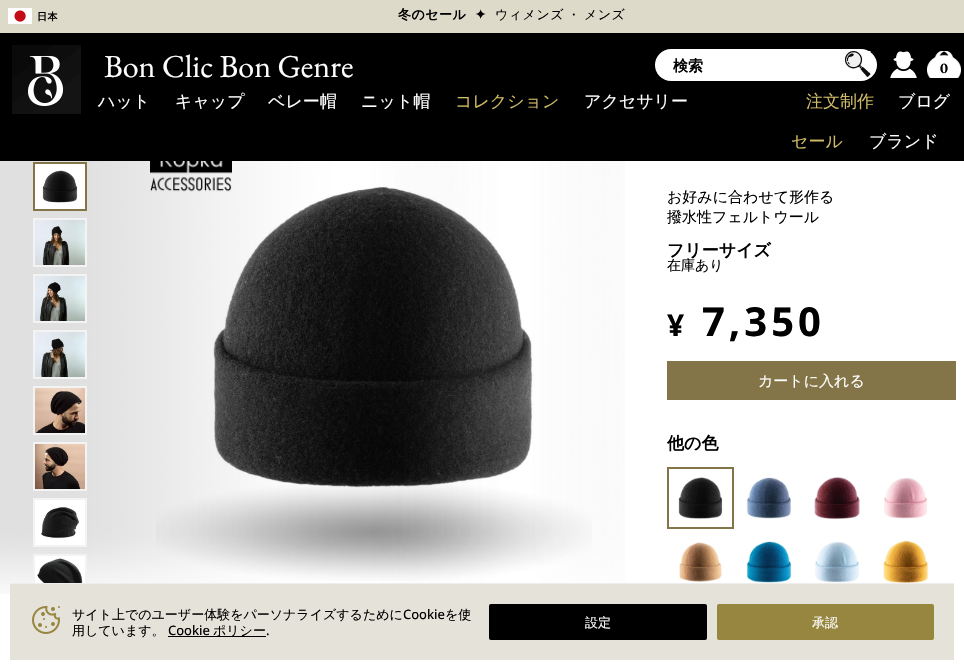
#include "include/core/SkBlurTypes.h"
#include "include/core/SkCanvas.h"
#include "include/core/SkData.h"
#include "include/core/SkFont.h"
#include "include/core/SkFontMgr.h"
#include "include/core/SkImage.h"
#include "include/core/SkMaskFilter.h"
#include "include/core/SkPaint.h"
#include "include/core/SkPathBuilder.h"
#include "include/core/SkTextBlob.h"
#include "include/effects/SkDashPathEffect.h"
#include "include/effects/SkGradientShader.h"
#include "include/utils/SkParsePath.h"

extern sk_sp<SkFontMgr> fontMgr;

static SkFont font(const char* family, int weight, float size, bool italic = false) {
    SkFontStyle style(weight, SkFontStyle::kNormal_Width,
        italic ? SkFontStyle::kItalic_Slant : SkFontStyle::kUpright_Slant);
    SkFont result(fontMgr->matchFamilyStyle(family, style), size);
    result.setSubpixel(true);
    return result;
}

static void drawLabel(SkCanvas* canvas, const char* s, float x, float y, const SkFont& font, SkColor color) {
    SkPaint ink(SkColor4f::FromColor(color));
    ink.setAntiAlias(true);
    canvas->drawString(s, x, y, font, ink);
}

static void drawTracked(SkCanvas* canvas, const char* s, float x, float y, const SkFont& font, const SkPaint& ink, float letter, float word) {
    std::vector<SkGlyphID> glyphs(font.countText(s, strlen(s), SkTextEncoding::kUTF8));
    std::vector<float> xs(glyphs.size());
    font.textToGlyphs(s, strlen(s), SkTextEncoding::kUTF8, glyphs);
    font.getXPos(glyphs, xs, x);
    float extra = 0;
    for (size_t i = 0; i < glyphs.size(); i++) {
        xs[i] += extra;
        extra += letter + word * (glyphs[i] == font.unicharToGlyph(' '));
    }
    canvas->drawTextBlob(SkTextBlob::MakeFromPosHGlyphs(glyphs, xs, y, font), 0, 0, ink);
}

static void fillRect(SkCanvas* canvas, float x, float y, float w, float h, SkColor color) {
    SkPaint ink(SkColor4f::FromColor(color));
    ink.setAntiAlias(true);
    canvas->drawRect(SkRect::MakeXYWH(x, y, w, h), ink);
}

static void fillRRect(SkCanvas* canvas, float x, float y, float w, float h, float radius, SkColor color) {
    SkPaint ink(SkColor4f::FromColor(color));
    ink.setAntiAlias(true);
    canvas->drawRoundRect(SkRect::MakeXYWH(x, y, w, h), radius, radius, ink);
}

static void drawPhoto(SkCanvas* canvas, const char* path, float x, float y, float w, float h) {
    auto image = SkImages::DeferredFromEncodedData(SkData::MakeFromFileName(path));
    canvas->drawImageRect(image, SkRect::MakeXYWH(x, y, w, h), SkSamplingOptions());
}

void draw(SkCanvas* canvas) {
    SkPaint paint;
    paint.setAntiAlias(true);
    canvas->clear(0xFF000000);
    fillRect(canvas, 0, 0, 964, 33, 0xFFDEDACA);
    drawPhoto(canvas, "assets/img1.png", 8, 8, 24, 16);
    SkFont font1 = font("WenQuanYi Zen Hei", 700, 10);
    paint.setColor(0xFF000000);
    drawTracked(canvas, "日本", 37, 20, font1, paint, 0.5f, 0);
    SkFont font2 = font("WenQuanYi Zen Hei", 700, 13);
    drawTracked(canvas, "冬のセール", 398, 19, font2, paint, 0.5f, 0);
    SkFont font3 = font("DejaVu Sans", 700, 13);
    drawTracked(canvas, "✦", 475, 19, font3, paint, 0.5f, 0);
    SkFont font4 = font("WenQuanYi Zen Hei", 500, 13);
    drawTracked(canvas, "ウィメンズ", 495, 19, font4, paint, 0.5f, 0);
    SkFont font5 = font("Open Sans", 600, 13);
    drawTracked(canvas, "·", 572, 19, font5, paint, 0.5f, 0);
    drawTracked(canvas, "メンズ", 584, 19, font4, paint, 0.5f, 0);
    drawPhoto(canvas, "assets/img2.png", 12, 45, 69, 69);
    SkFont font6 = font("EB Garamond", 400, 32);
    drawLabel(canvas, "Bon Clic Bon Genre", 104, 77, font6, 0xFFFFFFFF);
    fillRRect(canvas, 655, 49, 222, 32, 16, 0xFFFFFFFF);
    SkFont font7 = font("WenQuanYi Zen Hei", 700, 15);
    drawLabel(canvas, "検索", 673, 71, font7, 0xFF000000);
    drawPhoto(canvas, "assets/img3.png", 844, 51, 27, 26);
    drawPhoto(canvas, "assets/img4.png", 890, 51, 27, 27);
    drawPhoto(canvas, "assets/img5.png", 927, 51, 34, 27);
    SkFont font8 = font("EB Garamond", 700, 15);
    drawLabel(canvas, "0", 940, 73, font8, 0xFF000000);
    SkFont font9 = font("WenQuanYi Zen Hei", 500, 17);
    drawLabel(canvas, "ハット", 98, 107, font9, 0xFFFFFFFF);
    drawLabel(canvas, "キャップ", 175, 107, font9, 0xFFFFFFFF);
    drawLabel(canvas, "ベレー帽", 268, 107, font9, 0xFFFFFFFF);
    drawLabel(canvas, "ニット帽", 361, 107, font9, 0xFFFFFFFF);
    drawLabel(canvas, "コレクション", 455, 107, font9, 0xFFD0BB66);
    drawLabel(canvas, "アクセサリー", 584, 107, font9, 0xFFFFFFFF);
    drawLabel(canvas, "注文制作", 806, 107, font9, 0xFFD0BB66);
    drawLabel(canvas, "ブログ", 898, 107, font9, 0xFFFFFFFF);
    drawLabel(canvas, "セール", 791, 147, font9, 0xFFD0BB66);
    drawLabel(canvas, "ブランド", 869, 147, font9, 0xFFFFFFFF);
    fillRect(canvas, 0, 161, 964, 509, 0xFFFFFFFF);
    drawPhoto(canvas, "assets/img16.png", 213, 186, 320, 302);
    drawPhoto(canvas, "assets/img15.png", 150, 161, 82, 31);
    drawPhoto(canvas, "assets/img17.png", 156, 485, 436, 96);
    drawPhoto(canvas, "assets/img6.png", 0, 161, 625, 433);
    paint.setStroke(true);
    paint.setStrokeWidth(2);
    paint.setColor(0xFF847548);
    canvas->drawRect(SkRect::MakeXYWH(34, 163, 52, 47), paint);
    drawPhoto(canvas, "assets/img7.png", 35, 164, 50, 45);
    paint.setColor(0xFFF3F3F3);
    canvas->drawRect(SkRect::MakeXYWH(34, 219, 52, 47), paint);
    drawPhoto(canvas, "assets/img8.png", 35, 220, 50, 45);
    canvas->drawRect(SkRect::MakeXYWH(34, 275, 52, 47), paint);
    drawPhoto(canvas, "assets/img9.png", 35, 276, 50, 45);
    canvas->drawRect(SkRect::MakeXYWH(34, 331, 52, 47), paint);
    drawPhoto(canvas, "assets/img10.png", 35, 332, 50, 45);
    canvas->drawRect(SkRect::MakeXYWH(34, 387, 52, 47), paint);
    drawPhoto(canvas, "assets/img11.png", 35, 388, 50, 45);
    canvas->drawRect(SkRect::MakeXYWH(34, 443, 52, 47), paint);
    drawPhoto(canvas, "assets/img12.png", 35, 444, 50, 45);
    canvas->drawRect(SkRect::MakeXYWH(34, 499, 52, 47), paint);
    drawPhoto(canvas, "assets/img13.png", 35, 500, 50, 45);
    canvas->drawRect(SkRect::MakeXYWH(34, 555, 52, 47), paint);
    drawPhoto(canvas, "assets/img14.png", 35, 556, 50, 27);
    SkFont font10 = font("WenQuanYi Zen Hei", 500, 15);
    drawLabel(canvas, "お好みに合わせて形作る", 667, 202, font10, 0xFF000000);
    drawLabel(canvas, "撥水性フェルトウール", 667, 222, font10, 0xFF000000);
    SkFont font11 = font("WenQuanYi Zen Hei", 700, 17);
    drawLabel(canvas, "フリーサイズ", 667, 256, font11, 0xFF000000);
    SkFont font12 = font("WenQuanYi Zen Hei", 500, 14);
    drawLabel(canvas, "在庫あり", 667, 270, font12, 0xFF000000);
    SkFont font13 = font("Open Sans", 700, 30);
    paint.setStroke(false);
    paint.setColor(0xFF000000);
    drawTracked(canvas, "¥", 667, 336, font13, paint, 4, 0);
    SkFont font14 = font("Open Sans", 700, 40);
    drawTracked(canvas, "7,350", 702, 336, font14, paint, 4, 0);
    fillRect(canvas, 667, 361, 289, 39, 0xFF847548);
    drawLabel(canvas, "カートに入れる", 758, 386, font10, 0xFFFFFFFF);
    drawLabel(canvas, "他の色", 667, 449, font11, 0xFF000000);
    paint.setStroke(true);
    paint.setColor(0xFF847548);
    canvas->drawRect(SkRect::MakeXYWH(668, 468, 65, 60), paint);
    drawPhoto(canvas, "assets/img18.png", 678, 477, 45, 42);
    drawPhoto(canvas, "assets/img19.png", 746, 477, 45, 42);
    drawPhoto(canvas, "assets/img20.png", 814, 477, 46, 42);
    drawPhoto(canvas, "assets/img21.png", 884, 478, 44, 41);
    drawPhoto(canvas, "assets/img22.png", 679, 542, 43, 40);
    drawPhoto(canvas, "assets/img23.png", 746, 541, 47, 42);
    drawPhoto(canvas, "assets/img24.png", 815, 542, 44, 41);
    drawPhoto(canvas, "assets/img25.png", 883, 539, 46, 44);
    fillRect(canvas, 10, 584, 944, 76, 0xFFE5E2D9);
    fillRect(canvas, 10, 583, 944, 1, 0xFFF0EEEC);
    drawPhoto(canvas, "assets/img26.png", 32, 606, 28, 28);
    drawLabel(canvas, "サイト上でのユーザー体験をパーソナライズするために", 72, 619, font4, 0xFF000000);
    SkFont font15 = font("Open Sans", 500, 13);
    drawLabel(canvas, "Cookie", 403, 619, font15, 0xFF000000);
    drawLabel(canvas, "を使", 445, 619, font4, 0xFF000000);
    drawLabel(canvas, "用しています。", 72, 635, font4, 0xFF000000);
    drawLabel(canvas, "Cookie", 168, 635, font15, 0xFF000000);
    fillRect(canvas, 168, 636, 98, 1, 0xFF000000);
    drawLabel(canvas, "ポリシー", 213, 635, font4, 0xFF000000);
    drawLabel(canvas, ".", 266, 635, font15, 0xFF000000);
    fillRRect(canvas, 489, 604, 218, 36, 2, 0xFF000000);
    drawLabel(canvas, "設定", 585, 627, font4, 0xFFFFFFFF);
    fillRRect(canvas, 717, 604, 217, 36, 2, 0xFF97863F);
    drawLabel(canvas, "承認", 812, 627, font4, 0xFFFFFFFF);
}
